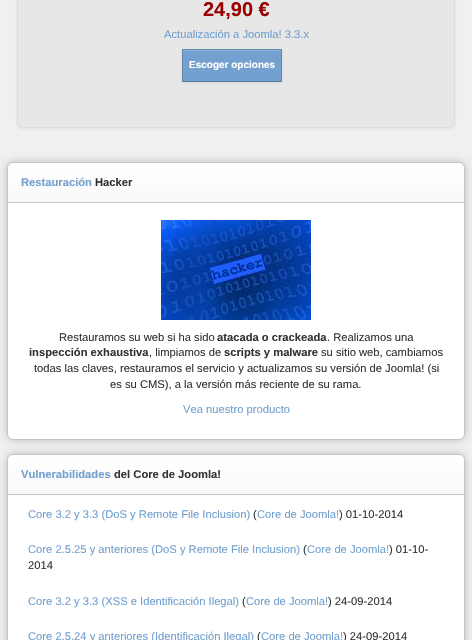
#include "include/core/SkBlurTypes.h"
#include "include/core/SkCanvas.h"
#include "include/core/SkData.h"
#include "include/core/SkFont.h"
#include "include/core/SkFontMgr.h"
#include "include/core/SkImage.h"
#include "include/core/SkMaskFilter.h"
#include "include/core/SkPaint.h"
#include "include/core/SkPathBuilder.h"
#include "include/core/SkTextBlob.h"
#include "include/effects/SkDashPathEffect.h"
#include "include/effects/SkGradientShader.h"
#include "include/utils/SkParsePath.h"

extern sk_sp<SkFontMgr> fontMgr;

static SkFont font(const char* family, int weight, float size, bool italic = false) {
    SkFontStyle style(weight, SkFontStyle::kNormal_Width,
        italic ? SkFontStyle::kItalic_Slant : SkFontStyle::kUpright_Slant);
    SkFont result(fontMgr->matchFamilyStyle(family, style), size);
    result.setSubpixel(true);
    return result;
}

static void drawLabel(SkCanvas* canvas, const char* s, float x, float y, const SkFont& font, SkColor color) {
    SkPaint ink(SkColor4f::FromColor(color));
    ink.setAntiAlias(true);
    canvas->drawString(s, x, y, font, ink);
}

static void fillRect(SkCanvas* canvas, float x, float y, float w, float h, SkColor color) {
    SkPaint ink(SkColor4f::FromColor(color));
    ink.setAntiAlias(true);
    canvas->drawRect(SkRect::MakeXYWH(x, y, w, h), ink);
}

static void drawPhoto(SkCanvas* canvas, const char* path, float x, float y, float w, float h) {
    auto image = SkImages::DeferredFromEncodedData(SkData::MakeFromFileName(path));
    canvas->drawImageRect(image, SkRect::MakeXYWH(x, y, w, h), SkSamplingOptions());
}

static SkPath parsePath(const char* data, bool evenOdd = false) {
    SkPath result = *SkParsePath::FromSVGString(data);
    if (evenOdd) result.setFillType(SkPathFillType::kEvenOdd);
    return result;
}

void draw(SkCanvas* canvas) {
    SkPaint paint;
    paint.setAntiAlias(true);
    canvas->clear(0xFFF0F0F0);
    paint.setColor(0x0F000000);
    paint.setMaskFilter(SkMaskFilter::MakeBlur(kNormal_SkBlurStyle, 1.5f));
    canvas->drawRoundRect(SkRect::MakeXYWH(17, -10, 438, 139), 5, 5, paint);
    paint.setMaskFilter(nullptr);
    paint.setColor(0xFFE7E7E7);
    canvas->drawRoundRect(SkRect::MakeXYWH(17.5f, -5.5f, 437, 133), 4.5f, 4.5f, paint);
    paint.setStroke(true);
    paint.setStrokeWidth(1);
    paint.setColor(0xFFDDDDDD);
    canvas->drawRoundRect(SkRect::MakeXYWH(17.5f, -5.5f, 437, 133), 4.5f, 4.5f, paint);
    SkFont font1 = font("Liberation Sans", 700, 20);
    drawLabel(canvas, "24,90 €", 203, 16, font1, 0xFF990000);
    SkFont font2 = font("Liberation Sans", 400, 11.2f);
    drawLabel(canvas, "Actualización a Joomla! 3.3.x", 164, 38, font2, 0xFF73A0CF);
    paint.setStroke(false);
    paint.setColor(0x0D000000);
    paint.setMaskFilter(SkMaskFilter::MakeBlur(kNormal_SkBlurStyle, 1));
    canvas->drawRect(SkRect::MakeXYWH(182, 50, 100, 33), paint);
    paint.setMaskFilter(nullptr);
    fillRect(canvas, 182, 49, 100, 33, 0xFF73A0CF);
    fillRect(canvas, 183, 50, 98, 1, 0xFF8FB3D9);
    paint.setColor(0xFF6288B0);
    canvas->drawPath(parsePath("M182 49H282L281 50H183Z"), paint);
    paint.setColor(0x26000000);
    canvas->drawPath(parsePath("M282 49V82L281 81V50Z"), paint);
    paint.setColor(0x40000000);
    canvas->drawPath(parsePath("M282 82H182L183 81H281Z"), paint);
    paint.setColor(0x26000000);
    canvas->drawPath(parsePath("M182 82V49L183 50V81Z"), paint);
    SkFont font3 = font("Liberation Sans", 700, 10);
    drawLabel(canvas, "Escoger opciones", 189, 68, font3, 0xFFFFFFFF);
    paint.setColor(0xFFBDBDBD);
    paint.setMaskFilter(SkMaskFilter::MakeBlur(kNormal_SkBlurStyle, 4));
    canvas->drawRoundRect(SkRect::MakeXYWH(7, 162, 458, 278), 6, 6, paint);
    paint.setMaskFilter(nullptr);
    paint.setColor(0xFFFFFFFF);
    canvas->drawRoundRect(SkRect::MakeXYWH(7.5f, 162.5f, 457, 277), 5.5f, 5.5f, paint);
    paint.setStroke(true);
    paint.setColor(0xFFC5C5C5);
    canvas->drawRoundRect(SkRect::MakeXYWH(7.5f, 162.5f, 457, 277), 5.5f, 5.5f, paint);
    paint.setStroke(false);
    {
        const SkColor colors[] = {0xFFFFFFFF, 0xFFF9F9F9};
        const float stops[] = {0, 1};
        const SkPoint ends[] = {{236, 163}, {236, 202}};
        paint.setShader(SkGradientShader::MakeLinear(ends, colors, stops, 2, SkTileMode::kClamp));
        paint.setAlpha(255);
    }
    canvas->drawPath(parsePath("M14 163H458C461.5 163 464 165.5 464 169V202H8V169C8 165.5 10.5 163 14 163Z"), paint);
    fillRect(canvas, 8, 202, 456, 1, 0xFFC5C5C5);
    SkFont font4 = font("Liberation Sans", 700, 11.2f);
    drawLabel(canvas, "Restauración", 21, 186, font4, 0xFF73A0CF);
    drawLabel(canvas, "Hacker", 95, 186, font4, 0xFF333333);
    drawPhoto(canvas, "assets/img1.png", 161, 220, 150, 100);
    drawLabel(canvas, "Restauramos su web si ha sido", 59, 341, font2, 0xFF333333);
    drawLabel(canvas, "atacada o crackeada", 217, 341, font4, 0xFF333333);
    drawLabel(canvas, ". Realizamos una", 327, 341, font2, 0xFF333333);
    drawLabel(canvas, "inspección exhaustiva", 29, 356, font4, 0xFF333333);
    drawLabel(canvas, ", limpiamos de", 149, 356, font2, 0xFF333333);
    drawLabel(canvas, "scripts y malware", 224, 356, font4, 0xFF333333);
    drawLabel(canvas, "su sitio web, cambiamos", 321, 356, font2, 0xFF333333);
    drawLabel(canvas, "todas las claves, restauramos el servicio y actualizamos su versión de Joomla! (si", 34, 372, font2, 0xFF333333);
    drawLabel(canvas, "es su CMS), a la versión más reciente de su rama.", 110, 388, font2, 0xFF333333);
    drawLabel(canvas, "Vea nuestro producto", 183, 413, font2, 0xFF73A0CF);
    paint.setShader(nullptr);
    paint.setColor(0xFFBDBDBD);
    paint.setMaskFilter(SkMaskFilter::MakeBlur(kNormal_SkBlurStyle, 4));
    canvas->drawRoundRect(SkRect::MakeXYWH(7, 454, 458, 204), 6, 6, paint);
    paint.setMaskFilter(nullptr);
    paint.setColor(0xFFFFFFFF);
    canvas->drawRoundRect(SkRect::MakeXYWH(7.5f, 454.5f, 457, 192), 5.5f, 5.5f, paint);
    paint.setStroke(true);
    paint.setColor(0xFFC5C5C5);
    canvas->drawRoundRect(SkRect::MakeXYWH(7.5f, 454.5f, 457, 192), 5.5f, 5.5f, paint);
    paint.setStroke(false);
    {
        const SkColor colors[] = {0xFFFFFFFF, 0xFFF9F9F9};
        const float stops[] = {0, 1};
        const SkPoint ends[] = {{236, 455}, {236, 494}};
        paint.setShader(SkGradientShader::MakeLinear(ends, colors, stops, 2, SkTileMode::kClamp));
        paint.setAlpha(255);
    }
    canvas->drawPath(parsePath("M14 455H458C461.5 455 464 457.5 464 461V494H8V461C8 457.5 10.5 455 14 455Z"), paint);
    fillRect(canvas, 8, 494, 456, 1, 0xFFC5C5C5);
    drawLabel(canvas, "Vulnerabilidades", 21, 478, font4, 0xFF73A0CF);
    drawLabel(canvas, "del Core de Joomla!", 114, 478, font4, 0xFF333333);
    drawLabel(canvas, "Core 3.2 y 3.3 (DoS y Remote File Inclusion)", 28, 518, font2, 0xFF73A0CF);
    drawLabel(canvas, "(", 253, 518, font2, 0xFF333333);
    drawLabel(canvas, "Core de Joomla!", 257, 518, font2, 0xFF73A0CF);
    drawLabel(canvas, ") 01-10-2014", 339, 518, font2, 0xFF333333);
    drawLabel(canvas, "Core 2.5.25 y anteriores (DoS y Remote File Inclusion)", 28, 553, font2, 0xFF73A0CF);
    drawLabel(canvas, "(", 303, 553, font2, 0xFF333333);
    drawLabel(canvas, "Core de Joomla!", 307, 553, font2, 0xFF73A0CF);
    drawLabel(canvas, ") 01-10-", 389, 553, font2, 0xFF333333);
    drawLabel(canvas, "2014", 28, 569, font2, 0xFF333333);
    drawLabel(canvas, "Core 3.2 y 3.3 (XSS e Identificación Ilegal)", 28, 605, font2, 0xFF73A0CF);
    drawLabel(canvas, "(", 242, 605, font2, 0xFF333333);
    drawLabel(canvas, "Core de Joomla!", 246, 605, font2, 0xFF73A0CF);
    drawLabel(canvas, ") 24-09-2014", 328, 605, font2, 0xFF333333);
    drawLabel(canvas, "Core 2.5.24 y anteriores (Identificación Ilegal)", 28, 640, font2, 0xFF73A0CF);
    drawLabel(canvas, "(", 257, 640, font2, 0xFF333333);
    drawLabel(canvas, "Core de Joomla!", 261, 640, font2, 0xFF73A0CF);
    drawLabel(canvas, ") 24-09-2014", 343, 640, font2, 0xFF333333);
}
